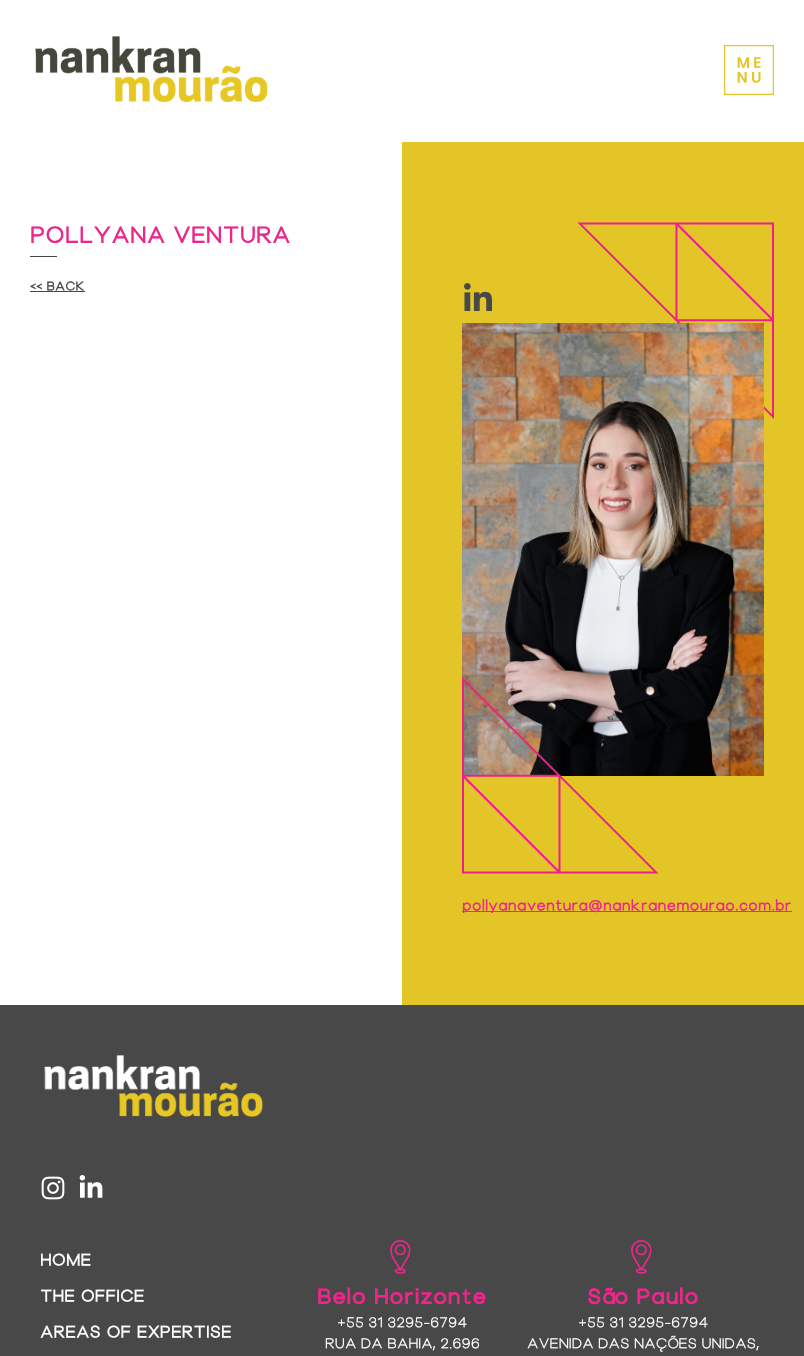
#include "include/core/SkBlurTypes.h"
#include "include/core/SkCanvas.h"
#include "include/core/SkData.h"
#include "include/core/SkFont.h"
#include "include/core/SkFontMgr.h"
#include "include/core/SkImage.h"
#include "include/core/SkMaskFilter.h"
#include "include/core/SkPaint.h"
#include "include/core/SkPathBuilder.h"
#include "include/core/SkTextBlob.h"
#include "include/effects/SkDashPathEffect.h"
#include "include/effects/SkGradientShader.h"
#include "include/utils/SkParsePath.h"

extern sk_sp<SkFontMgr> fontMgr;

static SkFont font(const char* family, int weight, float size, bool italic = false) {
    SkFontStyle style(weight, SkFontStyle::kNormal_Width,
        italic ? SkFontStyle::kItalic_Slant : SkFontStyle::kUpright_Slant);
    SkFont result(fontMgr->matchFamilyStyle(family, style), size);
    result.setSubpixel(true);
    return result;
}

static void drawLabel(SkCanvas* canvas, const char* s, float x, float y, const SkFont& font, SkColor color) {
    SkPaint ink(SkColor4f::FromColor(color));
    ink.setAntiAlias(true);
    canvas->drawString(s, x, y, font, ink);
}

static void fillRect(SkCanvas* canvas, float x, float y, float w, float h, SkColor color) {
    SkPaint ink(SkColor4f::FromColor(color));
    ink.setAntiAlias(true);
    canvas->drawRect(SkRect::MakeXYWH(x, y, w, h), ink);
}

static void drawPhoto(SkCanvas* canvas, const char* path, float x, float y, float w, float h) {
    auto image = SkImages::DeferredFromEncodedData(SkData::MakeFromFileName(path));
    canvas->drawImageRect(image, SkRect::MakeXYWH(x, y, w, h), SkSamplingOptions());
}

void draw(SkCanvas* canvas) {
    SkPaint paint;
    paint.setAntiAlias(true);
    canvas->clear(0xFFFFFFFF);
    drawPhoto(canvas, "assets/img1.png", 35, 36, 233, 67);
    drawPhoto(canvas, "assets/img2.png", 724, 45, 50, 50);
    fillRect(canvas, 402, 142, 402, 863, 0xFFE4C528);
    SkFont font1 = font("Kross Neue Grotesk", 700, 22);
    drawLabel(canvas, "POLLYANA VENTURA", 30, 242, font1, 0xFFED268A);
    fillRect(canvas, 30, 256, 27, 1, 0xFF484848);
    SkFont font2 = font("Kross Neue Grotesk", 700, 12);
    drawLabel(canvas, "<< BACK", 30, 290, font2, 0xFF484848);
    fillRect(canvas, 30, 291, 55, 1, 0xFF484848);
    drawPhoto(canvas, "assets/img3.png", 577, 222, 197, 197);
    drawPhoto(canvas, "assets/img4.png", 464, 283, 28, 28);
    drawPhoto(canvas, "assets/img5.png", 462, 323, 302, 453);
    drawPhoto(canvas, "assets/img6.png", 462, 677, 197, 197);
    fillRect(canvas, 462, 911, 330, 1, 0xFFED268A);
    SkFont font3 = font("Kross Neue Grotesk", 700, 14);
    drawLabel(canvas, "pollyanaventura@nankranemourao.com.br", 462, 910, font3, 0xFFED268A);
    fillRect(canvas, 0, 1005, 804, 351, 0xFF484848);
    drawPhoto(canvas, "assets/img7.png", 44, 1055, 219, 62);
    drawPhoto(canvas, "assets/img8.png", 41, 1176, 24, 24);
    drawPhoto(canvas, "assets/img9.png", 79, 1175, 24, 23);
    SkFont font4 = font("Kross Neue Grotesk", 700, 16);
    drawLabel(canvas, "HOME", 40, 1265, font4, 0xFFFFFFFF);
    drawLabel(canvas, "THE OFFICE", 40, 1301, font4, 0xFFFFFFFF);
    drawLabel(canvas, "AREAS OF EXPERTISE", 40, 1337, font4, 0xFFFFFFFF);
    drawPhoto(canvas, "assets/img10.png", 390, 1239, 21, 35);
    SkFont font5 = font("Kross Neue Grotesk", 900, 20);
    drawLabel(canvas, "Belo Horizonte", 317, 1303, font5, 0xFFED268A);
    SkFont font6 = font("Kross Neue Grotesk", 400, 14);
    drawLabel(canvas, "+55 31 3295-6794", 337, 1327, font6, 0xFFFFFFFF);
    drawLabel(canvas, "RUA DA BAHIA, 2.696", 325, 1348, font6, 0xFFFFFFFF);
    drawPhoto(canvas, "assets/img10.png", 631, 1239, 21, 35);
    drawLabel(canvas, "São Paulo", 587, 1303, font5, 0xFFED268A);
    drawLabel(canvas, "+55 31 3295-6794", 578, 1327, font6, 0xFFFFFFFF);
    drawLabel(canvas, "AVENIDA DAS NAÇÕES UNIDAS,", 527, 1348, font6, 0xFFFFFFFF);
}
